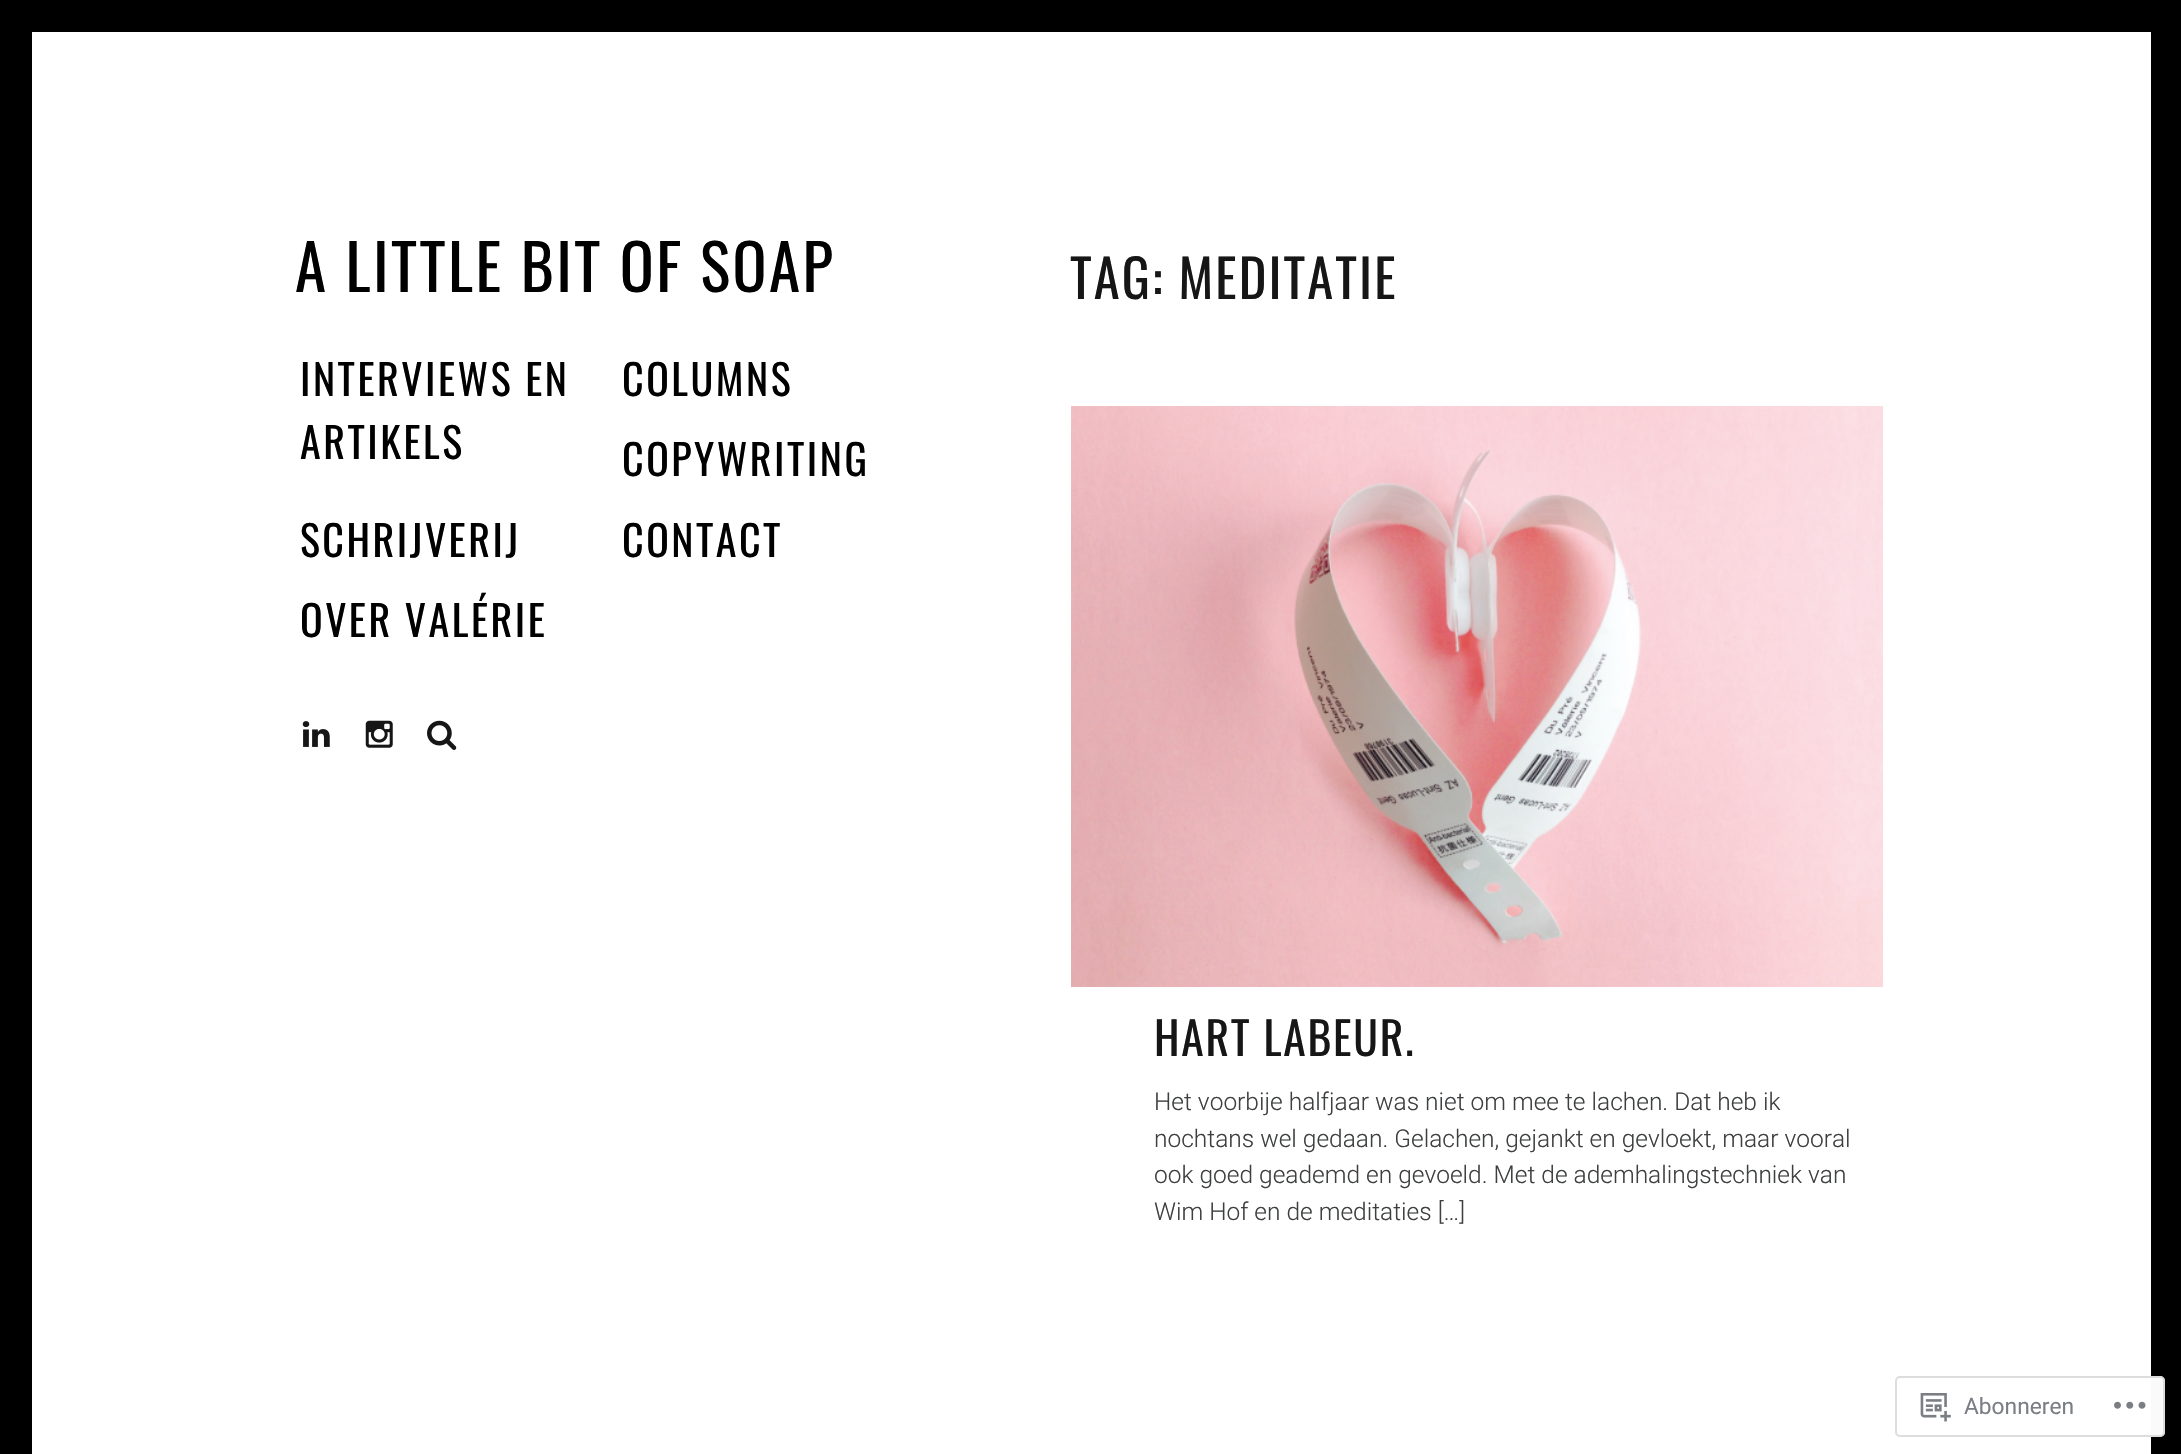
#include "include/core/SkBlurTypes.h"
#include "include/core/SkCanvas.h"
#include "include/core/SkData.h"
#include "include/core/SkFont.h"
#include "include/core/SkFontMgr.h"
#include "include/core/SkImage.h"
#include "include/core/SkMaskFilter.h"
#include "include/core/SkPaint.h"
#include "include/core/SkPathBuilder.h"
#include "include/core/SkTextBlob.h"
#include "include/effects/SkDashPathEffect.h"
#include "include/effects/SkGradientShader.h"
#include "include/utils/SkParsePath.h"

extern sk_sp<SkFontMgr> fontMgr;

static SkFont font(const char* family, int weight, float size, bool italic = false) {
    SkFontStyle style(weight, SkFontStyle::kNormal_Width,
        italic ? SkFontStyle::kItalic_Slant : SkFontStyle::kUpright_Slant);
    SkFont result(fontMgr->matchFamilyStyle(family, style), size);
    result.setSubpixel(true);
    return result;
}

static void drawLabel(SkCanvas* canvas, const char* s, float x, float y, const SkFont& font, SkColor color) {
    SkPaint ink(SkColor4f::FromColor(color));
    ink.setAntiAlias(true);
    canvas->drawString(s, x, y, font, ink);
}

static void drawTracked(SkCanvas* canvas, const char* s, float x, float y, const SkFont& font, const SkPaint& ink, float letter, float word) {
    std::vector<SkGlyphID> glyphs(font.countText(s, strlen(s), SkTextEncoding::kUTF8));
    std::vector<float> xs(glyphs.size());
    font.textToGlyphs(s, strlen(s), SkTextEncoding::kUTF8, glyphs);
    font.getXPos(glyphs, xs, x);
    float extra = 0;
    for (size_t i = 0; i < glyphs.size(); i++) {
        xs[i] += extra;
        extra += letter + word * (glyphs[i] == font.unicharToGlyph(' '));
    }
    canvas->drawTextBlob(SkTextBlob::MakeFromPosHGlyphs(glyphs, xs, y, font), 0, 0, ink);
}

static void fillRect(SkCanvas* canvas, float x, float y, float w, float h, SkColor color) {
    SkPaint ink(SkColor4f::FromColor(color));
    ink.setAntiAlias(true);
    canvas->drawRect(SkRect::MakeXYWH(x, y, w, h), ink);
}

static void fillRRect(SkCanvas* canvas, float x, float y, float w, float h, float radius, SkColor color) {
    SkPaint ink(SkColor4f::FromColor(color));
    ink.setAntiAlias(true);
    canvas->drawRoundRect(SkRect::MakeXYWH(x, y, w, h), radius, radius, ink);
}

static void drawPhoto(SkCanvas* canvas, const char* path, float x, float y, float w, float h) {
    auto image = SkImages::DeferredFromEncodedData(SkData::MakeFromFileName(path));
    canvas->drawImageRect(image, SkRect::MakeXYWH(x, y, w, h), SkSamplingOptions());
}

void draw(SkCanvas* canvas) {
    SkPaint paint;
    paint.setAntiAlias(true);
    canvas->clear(0xFFFFFFFF);
    fillRect(canvas, 32, 0, 2119, 32, 0xFF000000);
    fillRect(canvas, 2151, 0, 30, 1454, 0xFF000000);
    fillRect(canvas, 0, 0, 32, 1454, 0xFF000000);
    SkFont font1 = font("Oswald", 400, 63);
    paint.setColor(0xFF000000);
    drawTracked(canvas, "A LITTLE BIT OF SOAP", 295, 292, font1, paint, 2.5f, 0);
    SkFont font2 = font("Oswald", 400, 42);
    drawTracked(canvas, "INTERVIEWS EN", 300, 396, font2, paint, 2.5f, 0);
    drawTracked(canvas, "ARTIKELS", 300, 459, font2, paint, 2.5f, 0);
    drawTracked(canvas, "COLUMNS", 622, 396, font2, paint, 2.5f, 0);
    drawTracked(canvas, "COPYWRITING", 622, 476, font2, paint, 2.5f, 0);
    drawTracked(canvas, "SCHRIJVERIJ", 300, 557, font2, paint, 2.5f, 0);
    drawTracked(canvas, "CONTACT", 622, 557, font2, paint, 2.5f, 0);
    drawTracked(canvas, "OVER VALÉRIE", 300, 637, font2, paint, 2.5f, 0);
    drawPhoto(canvas, "assets/img1.png", 302, 721, 28, 26);
    drawPhoto(canvas, "assets/img2.png", 365, 720, 28, 28);
    drawPhoto(canvas, "assets/img3.png", 427, 720, 30, 30);
    SkFont font3 = font("Oswald", 400, 52.5f);
    paint.setColor(0xFF171617);
    drawTracked(canvas, "TAG: MEDITATIE", 1070, 299, font3, paint, 2.1f, 0);
    drawPhoto(canvas, "assets/img4.png", 1071, 406, 812, 581);
    SkFont font4 = font("Oswald", 400, 45.5f);
    drawTracked(canvas, "HART LABEUR.", 1154, 1056, font4, paint, 1.75f, 0);
    SkFont font5 = font("Roboto", 300, 24.5f);
    drawLabel(canvas, "Het voorbije halfjaar was niet om mee te lachen. Dat heb ik", 1154, 1110, font5, 0xFF3E3F40);
    drawLabel(canvas, "nochtans wel gedaan. Gelachen, gejankt en gevloekt, maar vooral", 1154, 1147, font5, 0xFF3E3F40);
    drawLabel(canvas, "ook goed geademd en gevoeld. Met de ademhalingstechniek van", 1154, 1183, font5, 0xFF3E3F40);
    drawLabel(canvas, "Wim Hof en de meditaties […]", 1154, 1220, font5, 0xFF3E3F40);
    fillRRect(canvas, 1895, 1376, 270, 61, 5, 0xFAFFFFFF);
    paint.setStroke(true);
    paint.setStrokeWidth(2);
    paint.setColor(0xFADCDCDE);
    canvas->drawRoundRect(SkRect::MakeXYWH(1896, 1377, 268, 59), 4, 4, paint);
    drawPhoto(canvas, "assets/img5.png", 1920, 1393, 31, 29);
    SkFont font6 = font("Roboto", 400, 22.75f);
    drawLabel(canvas, "Abonneren", 1964, 1414, font6, 0xFF7B7F85);
    drawPhoto(canvas, "assets/img6.png", 2114, 1401, 32, 8);
}
